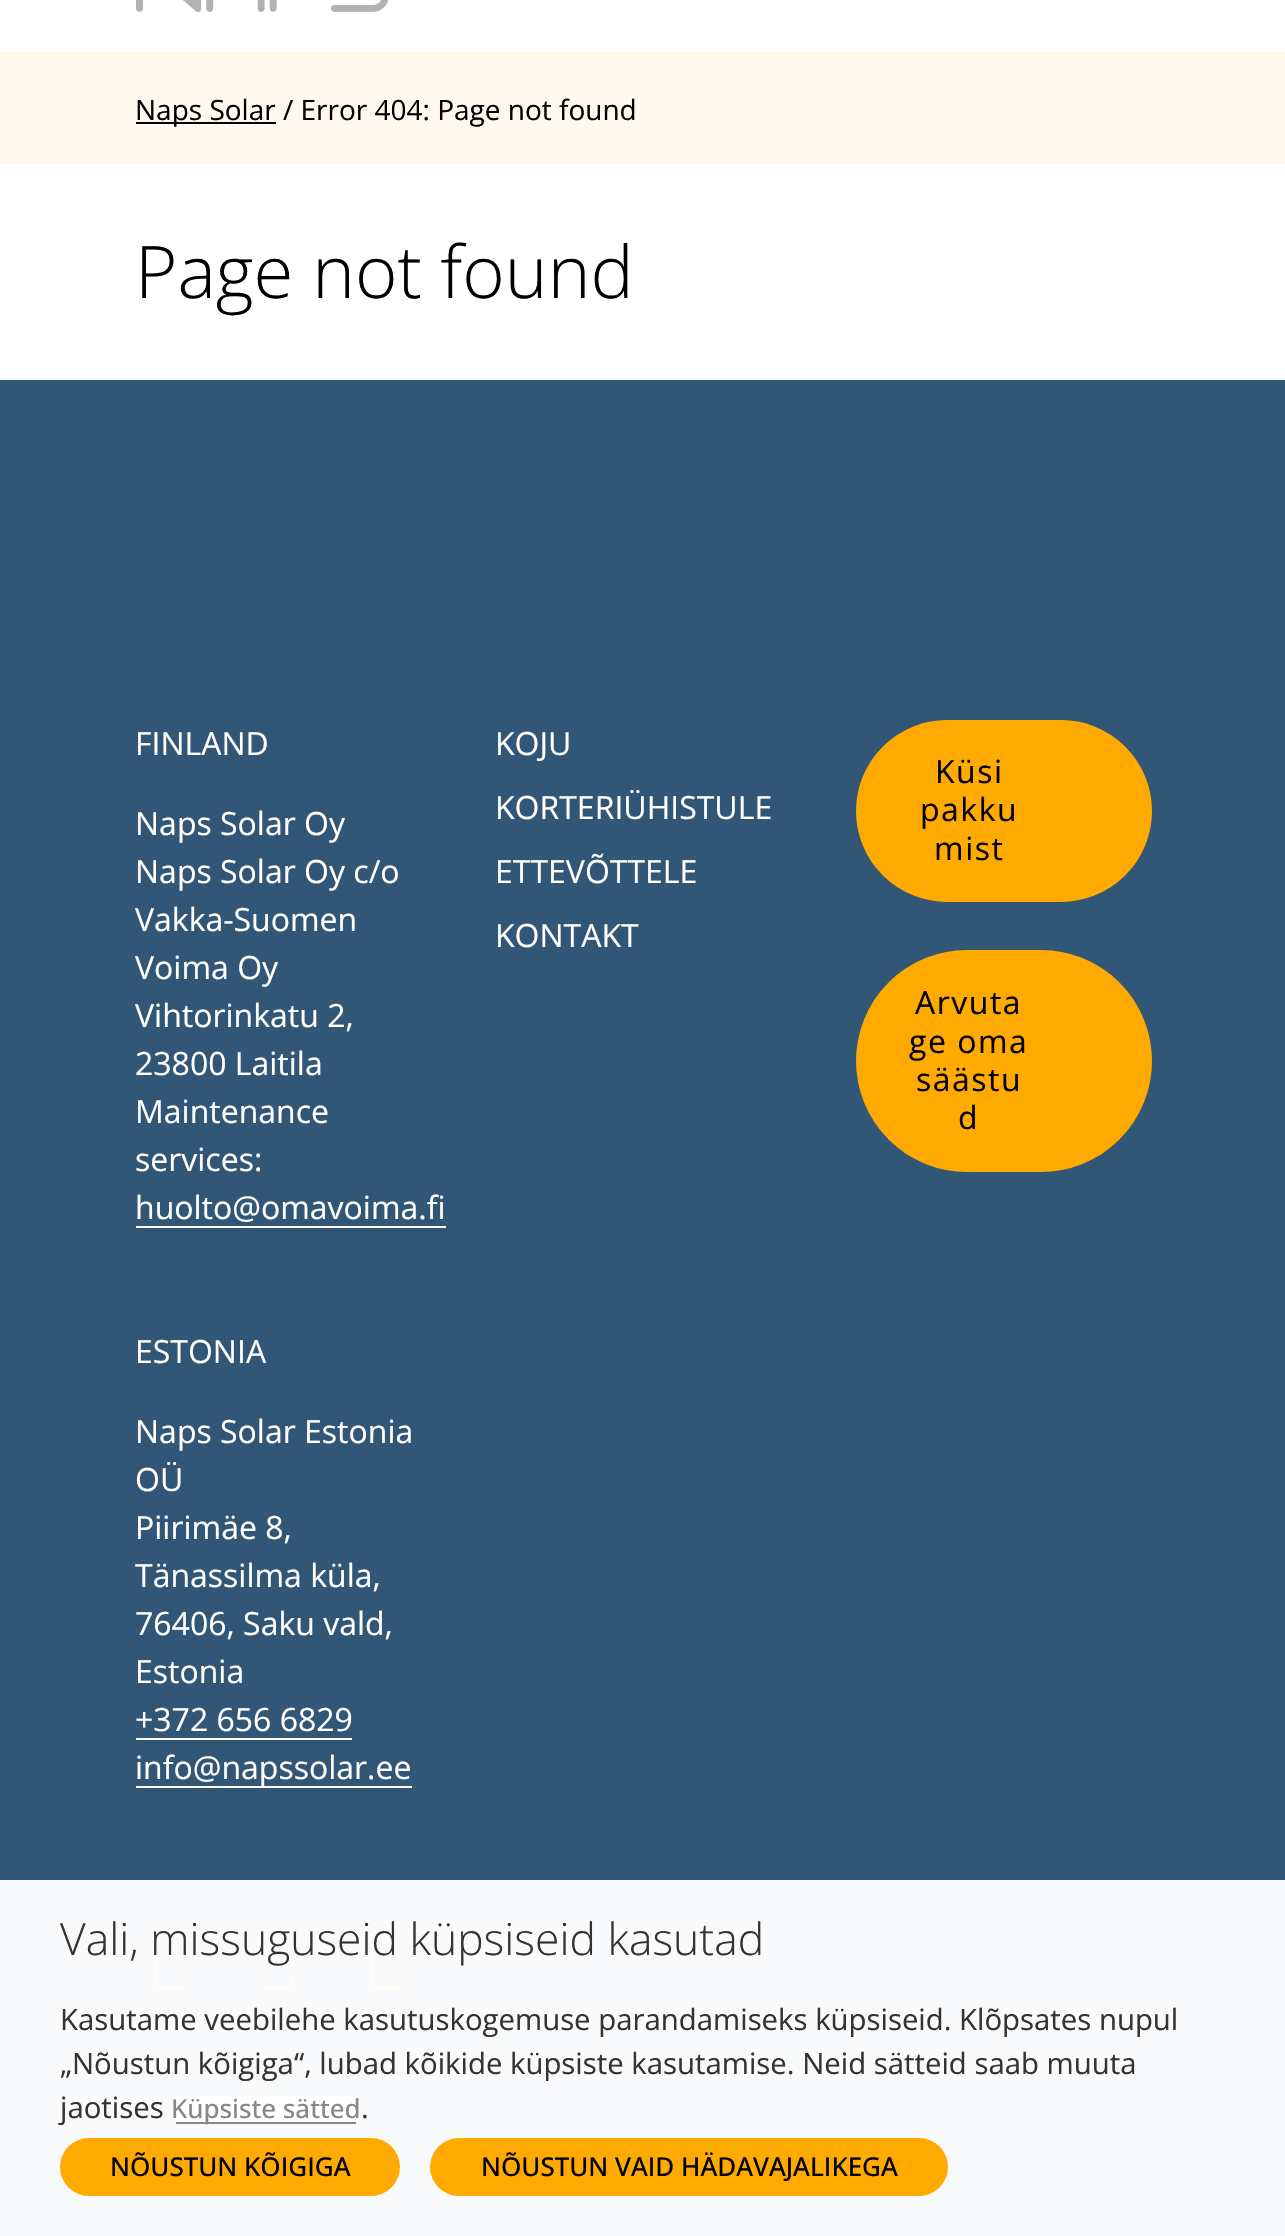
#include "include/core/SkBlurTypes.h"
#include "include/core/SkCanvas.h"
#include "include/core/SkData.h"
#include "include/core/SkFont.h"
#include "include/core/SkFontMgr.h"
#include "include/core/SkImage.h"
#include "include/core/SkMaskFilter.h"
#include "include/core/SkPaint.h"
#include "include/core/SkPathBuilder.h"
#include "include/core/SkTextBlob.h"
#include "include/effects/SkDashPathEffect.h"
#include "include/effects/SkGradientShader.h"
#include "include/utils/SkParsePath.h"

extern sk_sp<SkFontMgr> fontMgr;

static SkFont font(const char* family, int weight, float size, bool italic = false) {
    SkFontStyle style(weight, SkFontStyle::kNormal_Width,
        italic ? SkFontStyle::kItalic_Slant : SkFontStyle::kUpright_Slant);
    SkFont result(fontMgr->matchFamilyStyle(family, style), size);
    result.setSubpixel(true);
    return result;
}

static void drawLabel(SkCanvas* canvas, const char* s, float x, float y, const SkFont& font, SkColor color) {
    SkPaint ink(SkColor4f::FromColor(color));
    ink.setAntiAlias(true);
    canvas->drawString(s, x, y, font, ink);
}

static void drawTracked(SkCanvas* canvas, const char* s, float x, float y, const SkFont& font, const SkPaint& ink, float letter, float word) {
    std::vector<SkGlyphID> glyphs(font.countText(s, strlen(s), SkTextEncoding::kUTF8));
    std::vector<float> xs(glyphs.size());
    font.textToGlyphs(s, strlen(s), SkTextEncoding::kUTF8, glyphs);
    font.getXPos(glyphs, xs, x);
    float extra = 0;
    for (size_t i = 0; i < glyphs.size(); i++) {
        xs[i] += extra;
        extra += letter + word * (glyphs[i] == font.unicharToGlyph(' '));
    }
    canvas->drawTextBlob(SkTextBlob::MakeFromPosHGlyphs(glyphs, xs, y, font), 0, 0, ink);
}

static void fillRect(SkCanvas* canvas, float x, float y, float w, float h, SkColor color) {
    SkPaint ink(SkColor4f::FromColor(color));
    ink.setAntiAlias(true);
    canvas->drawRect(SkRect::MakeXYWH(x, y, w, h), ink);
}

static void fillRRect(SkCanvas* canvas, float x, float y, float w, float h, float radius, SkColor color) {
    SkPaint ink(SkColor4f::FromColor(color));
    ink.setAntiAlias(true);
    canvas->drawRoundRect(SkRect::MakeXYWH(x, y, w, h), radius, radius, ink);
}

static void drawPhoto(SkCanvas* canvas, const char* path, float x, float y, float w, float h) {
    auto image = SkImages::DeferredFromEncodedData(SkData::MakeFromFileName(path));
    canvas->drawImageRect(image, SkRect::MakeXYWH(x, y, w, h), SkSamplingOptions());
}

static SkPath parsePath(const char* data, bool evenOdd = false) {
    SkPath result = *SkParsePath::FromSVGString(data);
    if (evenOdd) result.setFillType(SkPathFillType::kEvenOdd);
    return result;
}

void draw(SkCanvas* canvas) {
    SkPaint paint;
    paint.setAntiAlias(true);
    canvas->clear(0xFFFFFFFF);
    drawPhoto(canvas, "assets/img1.png", 136, 0, 253, 12);
    fillRect(canvas, 0, 52, 1285, 112, 0xFFFEF8ED);
    fillRect(canvas, 136, 122, 140, 2, 0xFF000000);
    SkFont font1 = font("Open Sans", 400, 28);
    drawLabel(canvas, "Naps Solar / Error 404: Page not found", 135, 120, font1, 0xFF000000);
    SkFont font2 = font("Open Sans", 300, 72.5f);
    drawLabel(canvas, "Page not found", 135, 298, font2, 0xFF000000);
    fillRect(canvas, 0, 380, 1285, 1500, 0xFF325676);
    fillRect(canvas, 0, 1880, 1285, 356, 0xFFF9FAFB);
    SkFont font3 = font("Open Sans", 400, 32);
    drawLabel(canvas, "FINLAND", 135, 755, font3, 0xFFFFFFFF);
    drawLabel(canvas, "Naps Solar Oy", 135, 835, font3, 0xFFFFFFFF);
    drawLabel(canvas, "Naps Solar Oy c/o", 135, 883, font3, 0xFFFFFFFF);
    drawLabel(canvas, "Vakka-Suomen", 135, 931, font3, 0xFFFFFFFF);
    drawLabel(canvas, "Voima Oy", 135, 979, font3, 0xFFFFFFFF);
    drawLabel(canvas, "Vihtorinkatu 2,", 135, 1027, font3, 0xFFFFFFFF);
    drawLabel(canvas, "23800 Laitila", 135, 1075, font3, 0xFFFFFFFF);
    drawLabel(canvas, "Maintenance", 135, 1123, font3, 0xFFFFFFFF);
    drawLabel(canvas, "services:", 135, 1171, font3, 0xFFFFFFFF);
    drawLabel(canvas, "huolto@omavoima.fi", 135, 1219, font3, 0xFFFFFFFF);
    fillRect(canvas, 136, 1226, 310, 2, 0xFFFFFFFF);
    drawLabel(canvas, "ESTONIA", 135, 1363, font3, 0xFFFFFFFF);
    drawLabel(canvas, "Naps Solar Estonia", 135, 1443, font3, 0xFFFFFFFF);
    drawLabel(canvas, "OÜ", 135, 1491, font3, 0xFFFFFFFF);
    drawLabel(canvas, "Piirimäe 8,", 135, 1539, font3, 0xFFFFFFFF);
    drawLabel(canvas, "Tänassilma küla,", 135, 1587, font3, 0xFFFFFFFF);
    drawLabel(canvas, "76406, Saku vald,", 135, 1635, font3, 0xFFFFFFFF);
    drawLabel(canvas, "Estonia", 135, 1683, font3, 0xFFFFFFFF);
    drawLabel(canvas, "+372 656 6829", 135, 1731, font3, 0xFFFFFFFF);
    fillRect(canvas, 136, 1738, 216, 2, 0xFFFFFFFF);
    fillRect(canvas, 136, 1786, 276, 2, 0xFFFFFFFF);
    drawLabel(canvas, "info@napssolar.ee", 135, 1779, font3, 0xFFFFFFFF);
    drawLabel(canvas, "KOJU", 495, 755, font3, 0xFFFFFFFF);
    drawLabel(canvas, "KORTERIÜHISTULE", 495, 819, font3, 0xFFFFFFFF);
    drawLabel(canvas, "ETTEVÕTTELE", 495, 883, font3, 0xFFFFFFFF);
    drawLabel(canvas, "KONTAKT", 495, 947, font3, 0xFFFFFFFF);
    paint.setColor(0xFFFFAA00);
    canvas->drawRoundRect(SkRect::MakeXYWH(858, 722, 292, 178), 89, 89, paint);
    paint.setStroke(true);
    paint.setStrokeWidth(4);
    canvas->drawRoundRect(SkRect::MakeXYWH(858, 722, 292, 178), 89, 89, paint);
    paint.setStroke(false);
    paint.setColor(0xFF000000);
    drawTracked(canvas, "Küsi", 935, 783, font3, paint, 1.5f, 0);
    drawTracked(canvas, "pakku", 920, 821, font3, paint, 1.5f, 0);
    drawTracked(canvas, "mist", 934, 860, font3, paint, 1.5f, 0);
    paint.setColor(0xFFFFAA00);
    canvas->drawRoundRect(SkRect::MakeXYWH(858, 952, 292, 218), 109, 109, paint);
    paint.setStroke(true);
    canvas->drawRoundRect(SkRect::MakeXYWH(858, 952, 292, 218), 109, 109, paint);
    paint.setStroke(false);
    paint.setColor(0xFF000000);
    drawTracked(canvas, "Arvuta", 915, 1014, font3, paint, 1.5f, 0);
    drawTracked(canvas, "ge oma", 909, 1053, font3, paint, 1.5f, 0);
    drawTracked(canvas, "säästu", 916, 1091, font3, paint, 1.5f, 0);
    drawTracked(canvas, "d", 958, 1129, font3, paint, 1.5f, 0);
    paint.setColor(0xFFFFFCF7);
    canvas->drawPath(parsePath("M154 1990V1933H186V1990ZM158 1986H182V1937H158Z"), paint);
    drawPhoto(canvas, "assets/img2.png", 182, 1939, 4, 40);
    canvas->drawPath(parsePath("M262 1990V1933H294V1990ZM266 1986H290V1937H266Z"), paint);
    drawPhoto(canvas, "assets/img3.png", 290, 1941, 4, 36);
    canvas->drawPath(parsePath("M370 1990V1933H402V1990ZM374 1986H398V1937H374Z"), paint);
    drawPhoto(canvas, "assets/img4.png", 398, 1941, 4, 36);
    SkFont font4 = font("Open Sans", 300, 44.4f);
    drawLabel(canvas, "Vali, missuguseid küpsiseid kasutad", 60, 1955, font4, 0xFF333333);
    SkFont font5 = font("Open Sans", 400, 29.35f);
    drawLabel(canvas, "Kasutame veebilehe kasutuskogemuse parandamiseks küpsiseid. Klõpsates nupul", 60, 2030, font5, 0xFF333333);
    drawLabel(canvas, "„Nõustun kõigiga“, lubad kõikide küpsiste kasutamise. Neid sätteid saab muuta", 60, 2074, font5, 0xFF333333);
    drawLabel(canvas, "jaotises", 60, 2118, font5, 0xFF333333);
    fillRRect(canvas, 172, 2096, 188, 28, 8, 0xFFFFFFFF);
    fillRect(canvas, 176, 2122, 180, 2, 0xFF898888);
    SkFont font6 = font("Open Sans", 500, 26);
    drawLabel(canvas, "Küpsiste sätted", 171, 2118, font6, 0xFF898888);
    drawLabel(canvas, ".", 361, 2118, font5, 0xFF333333);
    fillRRect(canvas, 60, 2138, 340, 58, 29, 0xFFFFAA00);
    drawLabel(canvas, "NÕUSTUN KÕIGIGA", 110, 2176, font6, 0xFF000000);
    fillRRect(canvas, 430, 2138, 518, 58, 29, 0xFFFFAA00);
    drawLabel(canvas, "NÕUSTUN VAID HÄDAVAJALIKEGA", 481, 2176, font6, 0xFF000000);
}
